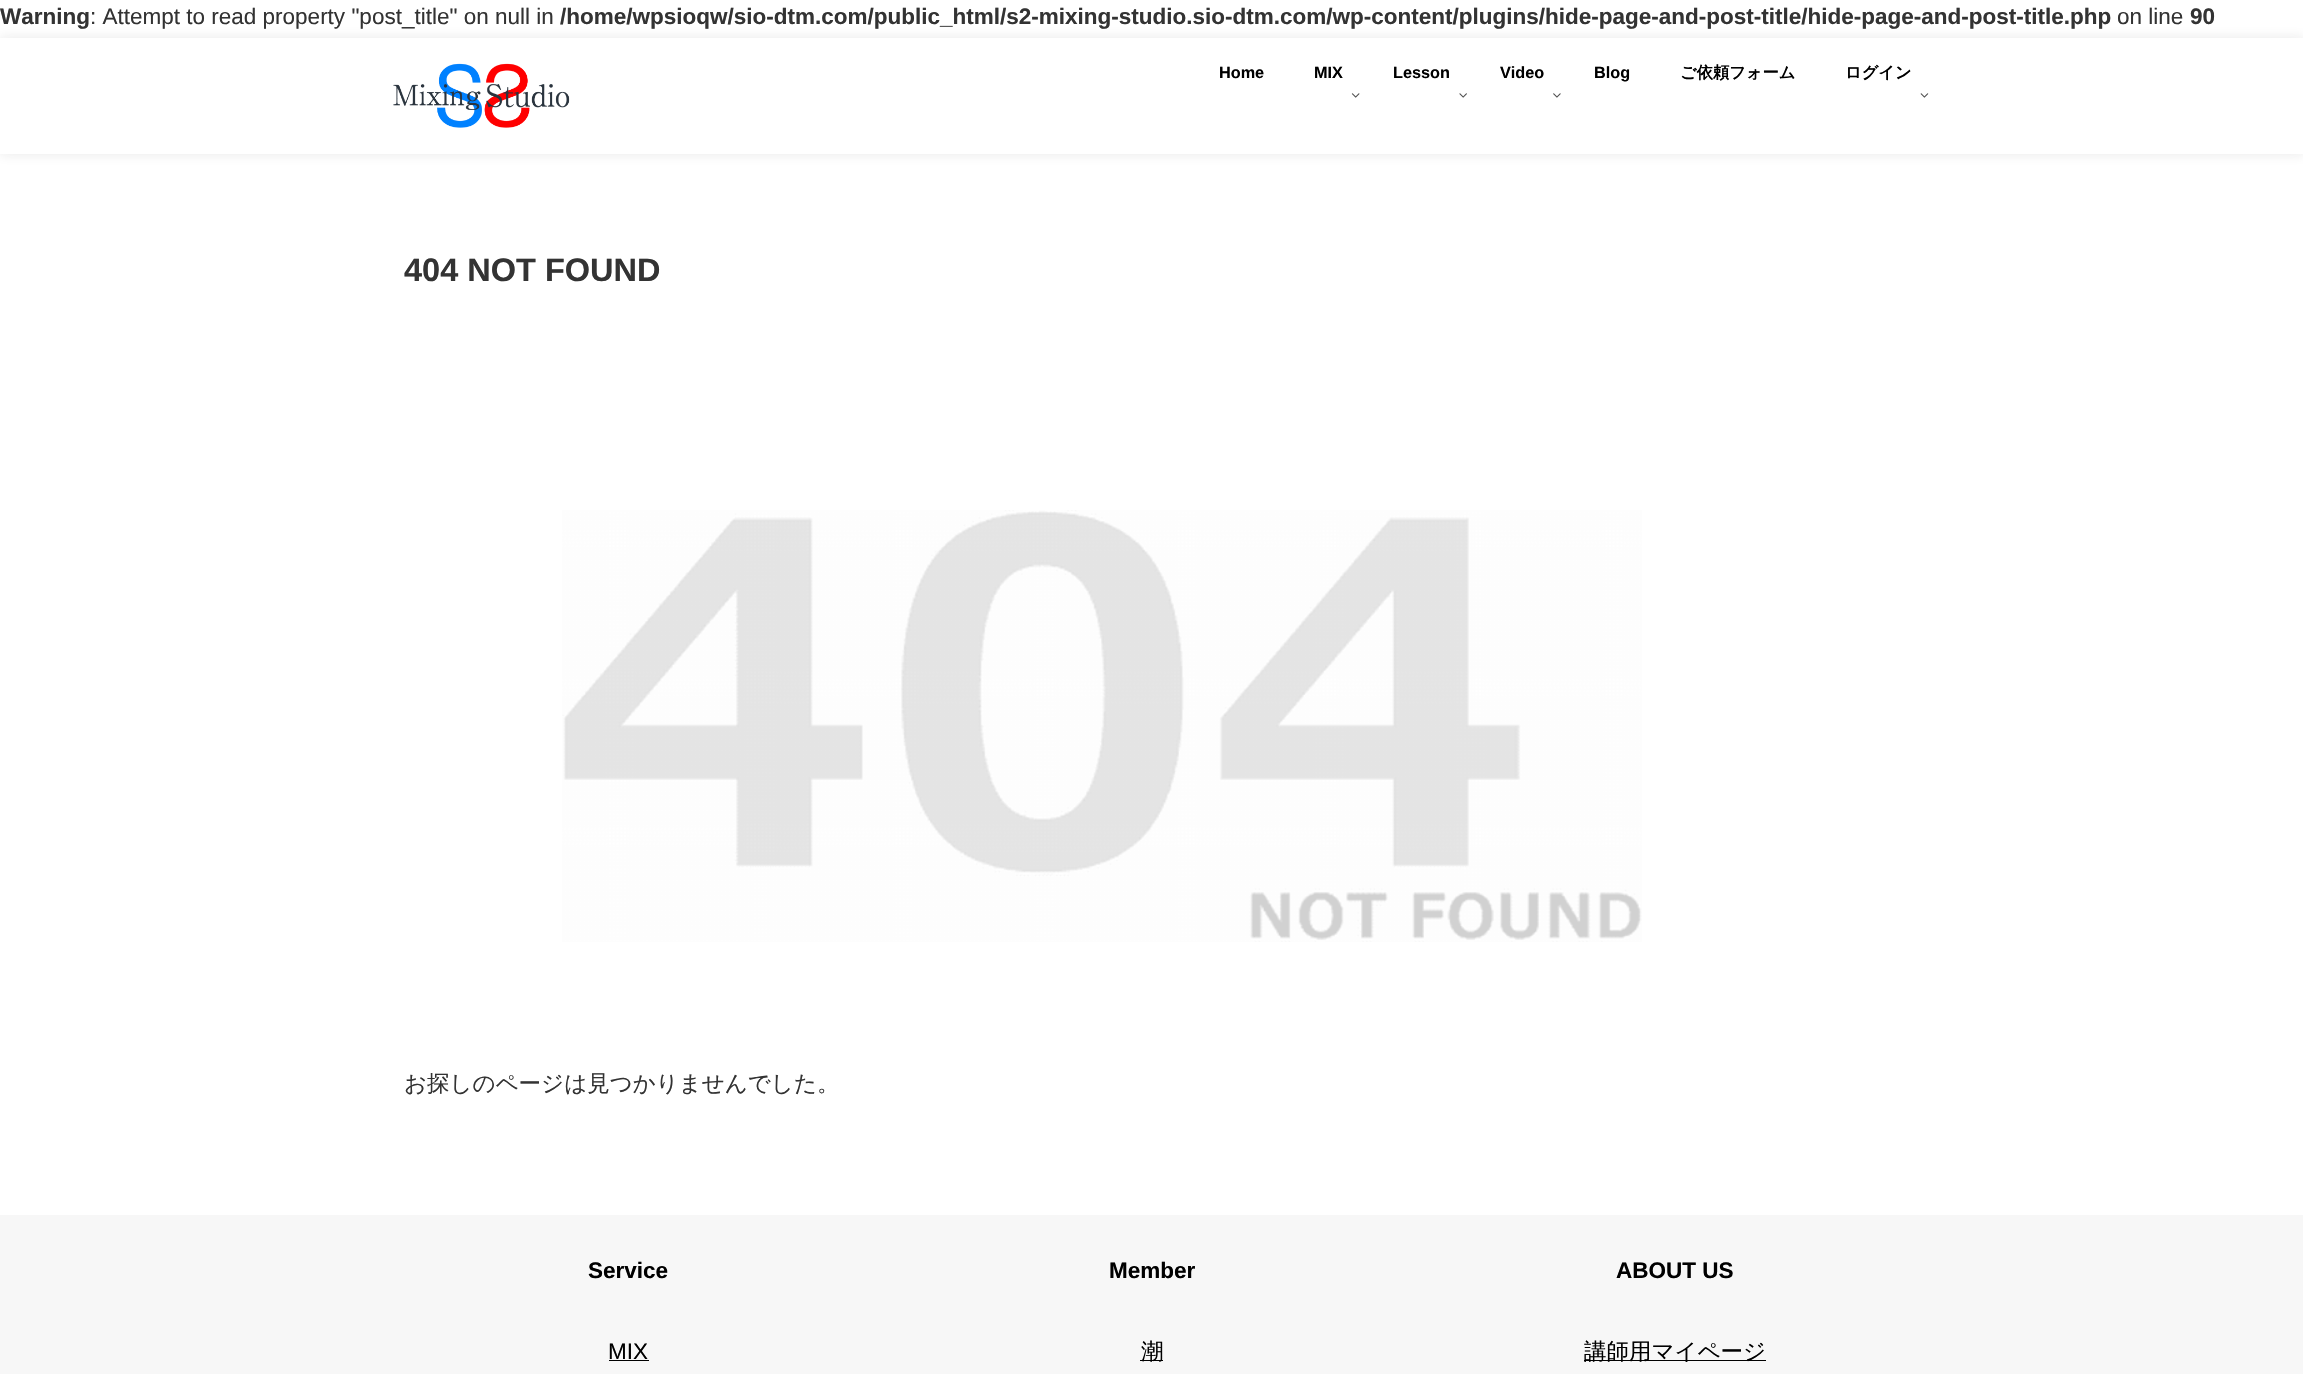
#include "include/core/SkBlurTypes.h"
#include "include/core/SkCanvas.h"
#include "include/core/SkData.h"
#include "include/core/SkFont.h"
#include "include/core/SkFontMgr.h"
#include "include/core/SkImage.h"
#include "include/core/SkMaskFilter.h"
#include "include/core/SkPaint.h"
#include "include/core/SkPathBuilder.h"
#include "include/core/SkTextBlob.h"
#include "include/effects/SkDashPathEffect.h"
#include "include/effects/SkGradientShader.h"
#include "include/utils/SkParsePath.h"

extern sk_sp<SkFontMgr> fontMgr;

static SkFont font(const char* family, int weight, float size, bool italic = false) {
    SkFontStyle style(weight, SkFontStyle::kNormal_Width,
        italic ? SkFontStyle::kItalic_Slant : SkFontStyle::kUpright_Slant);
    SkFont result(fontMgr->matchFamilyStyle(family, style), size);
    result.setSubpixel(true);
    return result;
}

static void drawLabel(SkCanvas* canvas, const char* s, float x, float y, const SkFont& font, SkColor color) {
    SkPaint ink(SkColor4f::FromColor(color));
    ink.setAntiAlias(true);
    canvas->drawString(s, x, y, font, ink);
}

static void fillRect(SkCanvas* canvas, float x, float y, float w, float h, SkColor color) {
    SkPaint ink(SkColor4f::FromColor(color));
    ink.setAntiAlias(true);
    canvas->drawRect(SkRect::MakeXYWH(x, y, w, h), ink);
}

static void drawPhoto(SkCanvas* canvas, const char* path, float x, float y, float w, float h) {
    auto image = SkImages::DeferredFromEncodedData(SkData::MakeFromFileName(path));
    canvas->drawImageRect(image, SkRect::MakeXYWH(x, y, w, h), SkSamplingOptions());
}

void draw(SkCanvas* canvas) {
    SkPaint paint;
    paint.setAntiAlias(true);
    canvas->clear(0xFFFFFFFF);
    paint.setColor(0x1A1E1E1E);
    paint.setMaskFilter(SkMaskFilter::MakeBlur(kNormal_SkBlurStyle, 6));
    canvas->drawRect(SkRect::MakeXYWH(0, 38, 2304, 116), paint);
    paint.setMaskFilter(nullptr);
    SkFont font1 = font("Liberation Sans", 700, 22.5f);
    drawLabel(canvas, "Warning", 0, 24, font1, 0xFF333333);
    SkFont font2 = font("Liberation Sans", 400, 22.5f);
    drawLabel(canvas, ": Attempt to read property \"post_title\" on null in", 90, 24, font2, 0xFF333333);
    drawLabel(canvas, "/home/wpsioqw/sio-dtm.com/public_html/s2-mixing-studio.sio-dtm.com/wp-content/plugins/hide-page-and-post-title/hide-page-and-post-title.php", 560, 24, font1, 0xFF333333);
    drawLabel(canvas, "on line", 2117, 24, font2, 0xFF333333);
    drawLabel(canvas, "90", 2190, 24, font1, 0xFF333333);
    fillRect(canvas, 0, 38, 2303, 116, 0xFFFFFFFF);
    drawPhoto(canvas, "assets/img1.png", 393, 63, 177, 65);
    SkFont font3 = font("Liberation Sans", 700, 16.25f);
    drawLabel(canvas, "Home", 1219, 78, font3, 0xFF000000);
    drawLabel(canvas, "MIX", 1314, 78, font3, 0xFF000000);
    drawPhoto(canvas, "assets/img2.png", 1351, 93, 9, 5);
    drawLabel(canvas, "Lesson", 1393, 78, font3, 0xFF000000);
    drawPhoto(canvas, "assets/img3.png", 1459, 93, 8, 5);
    drawLabel(canvas, "Video", 1500, 78, font3, 0xFF000000);
    drawPhoto(canvas, "assets/img4.png", 1553, 93, 8, 5);
    drawLabel(canvas, "Blog", 1594, 78, font3, 0xFF000000);
    SkFont font4 = font("WenQuanYi Zen Hei", 700, 16.25f);
    drawLabel(canvas, "ご依頼フォーム", 1680, 78, font4, 0xFF000000);
    drawLabel(canvas, "ログイン", 1845, 78, font4, 0xFF000000);
    drawPhoto(canvas, "assets/img5.png", 1920, 93, 9, 5);
    SkFont font5 = font("Liberation Sans", 700, 32.5f);
    drawLabel(canvas, "404 NOT FOUND", 404, 281, font5, 0xFF333333);
    drawPhoto(canvas, "assets/img6.png", 562, 510, 1080, 432);
    SkFont font6 = font("WenQuanYi Zen Hei", 500, 22.5f);
    drawLabel(canvas, "お探しのページは見つかりませんでした。", 404, 1091, font6, 0xFF333333);
    fillRect(canvas, 0, 1215, 2303, 159, 0xFFF7F7F7);
    drawLabel(canvas, "Service", 588, 1278, font1, 0xFF000000);
    drawLabel(canvas, "MIX", 608, 1359, font2, 0xFF000000);
    fillRect(canvas, 609, 1360, 40, 1, 0xFF000000);
    drawLabel(canvas, "Member", 1109, 1278, font1, 0xFF000000);
    fillRect(canvas, 1140, 1360, 23, 1, 0xFF000000);
    drawLabel(canvas, "潮", 1141, 1359, font6, 0xFF000000);
    drawLabel(canvas, "ABOUT US", 1616, 1278, font1, 0xFF000000);
    fillRect(canvas, 1584, 1360, 182, 1, 0xFF000000);
    drawLabel(canvas, "講師用マイページ", 1584, 1359, font6, 0xFF000000);
}
